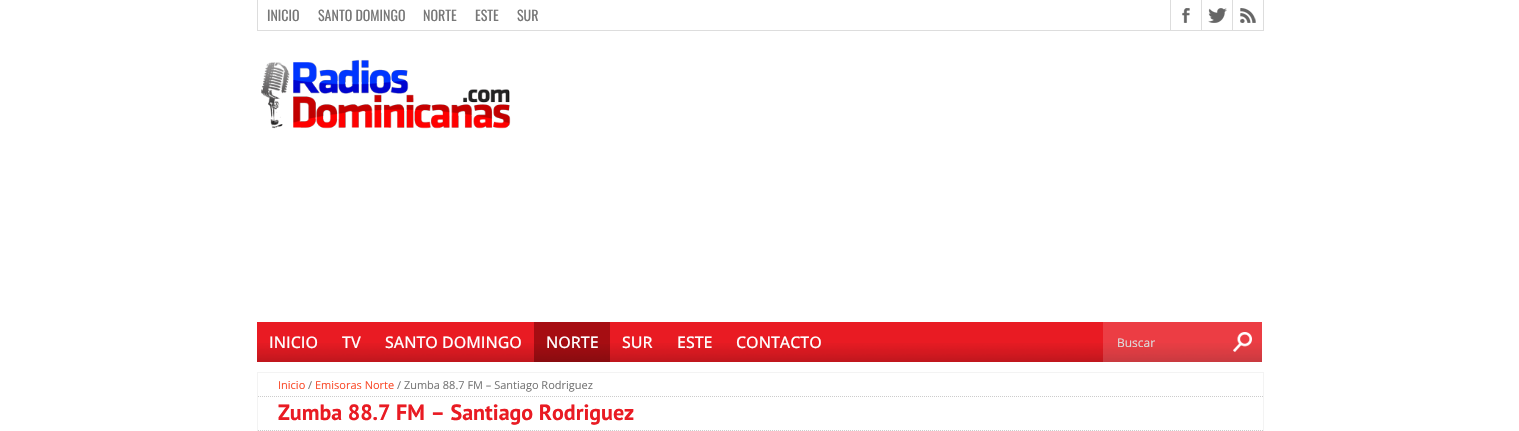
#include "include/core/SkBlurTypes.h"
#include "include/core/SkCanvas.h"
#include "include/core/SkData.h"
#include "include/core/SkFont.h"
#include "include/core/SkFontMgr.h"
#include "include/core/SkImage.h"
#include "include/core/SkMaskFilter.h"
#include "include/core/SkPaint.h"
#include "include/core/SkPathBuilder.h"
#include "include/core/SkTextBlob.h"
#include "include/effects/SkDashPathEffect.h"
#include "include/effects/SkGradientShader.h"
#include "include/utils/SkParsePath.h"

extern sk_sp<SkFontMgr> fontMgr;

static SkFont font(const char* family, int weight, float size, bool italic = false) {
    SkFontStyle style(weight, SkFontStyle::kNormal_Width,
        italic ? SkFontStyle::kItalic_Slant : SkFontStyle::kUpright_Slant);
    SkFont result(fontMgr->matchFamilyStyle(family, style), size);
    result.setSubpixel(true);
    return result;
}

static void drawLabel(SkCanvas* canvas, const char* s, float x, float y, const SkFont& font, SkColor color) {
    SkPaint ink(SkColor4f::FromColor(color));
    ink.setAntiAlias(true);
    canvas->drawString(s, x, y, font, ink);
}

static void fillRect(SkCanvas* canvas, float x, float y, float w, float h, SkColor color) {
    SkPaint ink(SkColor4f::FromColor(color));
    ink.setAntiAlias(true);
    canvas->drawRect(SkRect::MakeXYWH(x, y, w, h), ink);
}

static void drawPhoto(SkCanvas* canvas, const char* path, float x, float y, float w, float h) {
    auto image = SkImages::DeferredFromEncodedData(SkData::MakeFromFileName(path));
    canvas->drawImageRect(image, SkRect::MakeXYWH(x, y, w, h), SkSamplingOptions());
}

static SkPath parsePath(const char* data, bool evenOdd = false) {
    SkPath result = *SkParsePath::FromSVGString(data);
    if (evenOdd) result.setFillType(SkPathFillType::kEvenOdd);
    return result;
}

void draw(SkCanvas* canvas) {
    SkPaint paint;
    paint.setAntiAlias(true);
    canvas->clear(0xFFFFFFFF);
    fillRect(canvas, 1263, 0, 1, 31, 0xFFDDDDDD);
    fillRect(canvas, 257, 30, 1007, 1, 0xFFDDDDDD);
    fillRect(canvas, 257, 0, 1, 31, 0xFFDDDDDD);
    SkFont font1 = font("Oswald", 400, 14);
    drawLabel(canvas, "INICIO", 267, 21, font1, 0xFF777777);
    drawLabel(canvas, "SANTO DOMINGO", 318, 21, font1, 0xFF777777);
    drawLabel(canvas, "NORTE", 423, 21, font1, 0xFF777777);
    drawLabel(canvas, "ESTE", 475, 21, font1, 0xFF777777);
    drawLabel(canvas, "SUR", 517, 21, font1, 0xFF777777);
    fillRect(canvas, 1170, 0, 1, 30, 0xFFDDDDDD);
    drawPhoto(canvas, "assets/img1.png", 1182, 8, 8, 15);
    fillRect(canvas, 1201, 0, 1, 30, 0xFFDDDDDD);
    drawPhoto(canvas, "assets/img2.png", 1208, 8, 19, 15);
    fillRect(canvas, 1232, 0, 1, 30, 0xFFDDDDDD);
    drawPhoto(canvas, "assets/img3.png", 1240, 8, 16, 15);
    drawPhoto(canvas, "assets/img4.png", 261, 59, 250, 70);
    fillRect(canvas, 257, 322, 1005, 40, 0xFFE91B23);
    drawPhoto(canvas, "assets/img5.png", 257, 343, 1005, 19);
    SkFont font2 = font("Open Sans", 500, 16);
    drawLabel(canvas, "INICIO", 269, 348, font2, 0xFFFFFFFF);
    drawLabel(canvas, "TV", 342, 348, font2, 0xFFFFFFFF);
    drawLabel(canvas, "SANTO DOMINGO", 385, 348, font2, 0xFFFFFFFF);
    fillRect(canvas, 534, 322, 76, 40, 0xFFA60D12);
    drawPhoto(canvas, "assets/img6.png", 534, 344, 76, 18);
    drawLabel(canvas, "NORTE", 546, 348, font2, 0xFFFFFFFF);
    drawLabel(canvas, "SUR", 622, 348, font2, 0xFFFFFFFF);
    drawLabel(canvas, "ESTE", 677, 348, font2, 0xFFFFFFFF);
    drawLabel(canvas, "CONTACTO", 736, 348, font2, 0xFFFFFFFF);
    fillRect(canvas, 1103, 322, 159, 40, 0x26FFFFFF);
    drawPhoto(canvas, "assets/img7.png", 1233, 332, 19, 20);
    SkFont font3 = font("Open Sans", 400, 12);
    drawLabel(canvas, "Buscar", 1117, 347, font3, 0xFFDDDDDD);
    paint.setStroke(true);
    paint.setStrokeWidth(1);
    paint.setColor(0xFFF3F3F3);
    canvas->drawRect(SkRect::MakeXYWH(257.5f, 372.5f, 1006, 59), paint);
    paint.setColor(0xFFCCCCCC);
    paint.setPathEffect(SkDashPathEffect::Make({{1, 1}}, 0));
    canvas->drawPath(parsePath("M258 396.5H1263"), paint);
    paint.setPathEffect(nullptr);
    SkFont font4 = font("Open Sans", 400, 11);
    drawLabel(canvas, "Inicio", 278, 389, font4, 0xFFFA4B2A);
    drawLabel(canvas, "/", 308, 389, font4, 0xFF777777);
    drawLabel(canvas, "Emisoras Norte", 315, 389, font4, 0xFFFA4B2A);
    drawLabel(canvas, "/ Zumba 88.7 FM – Santiago Rodriguez", 397, 389, font4, 0xFF777777);
    paint.setPathEffect(SkDashPathEffect::Make({{1, 1}}, 0));
    canvas->drawPath(parsePath("M258 430.5H1263"), paint);
    paint.setPathEffect(nullptr);
    SkFont font5 = font("PT Sans", 700, 22);
    drawLabel(canvas, "Zumba 88.7 FM – Santiago Rodriguez", 278, 420, font5, 0xFFE91B23);
}
